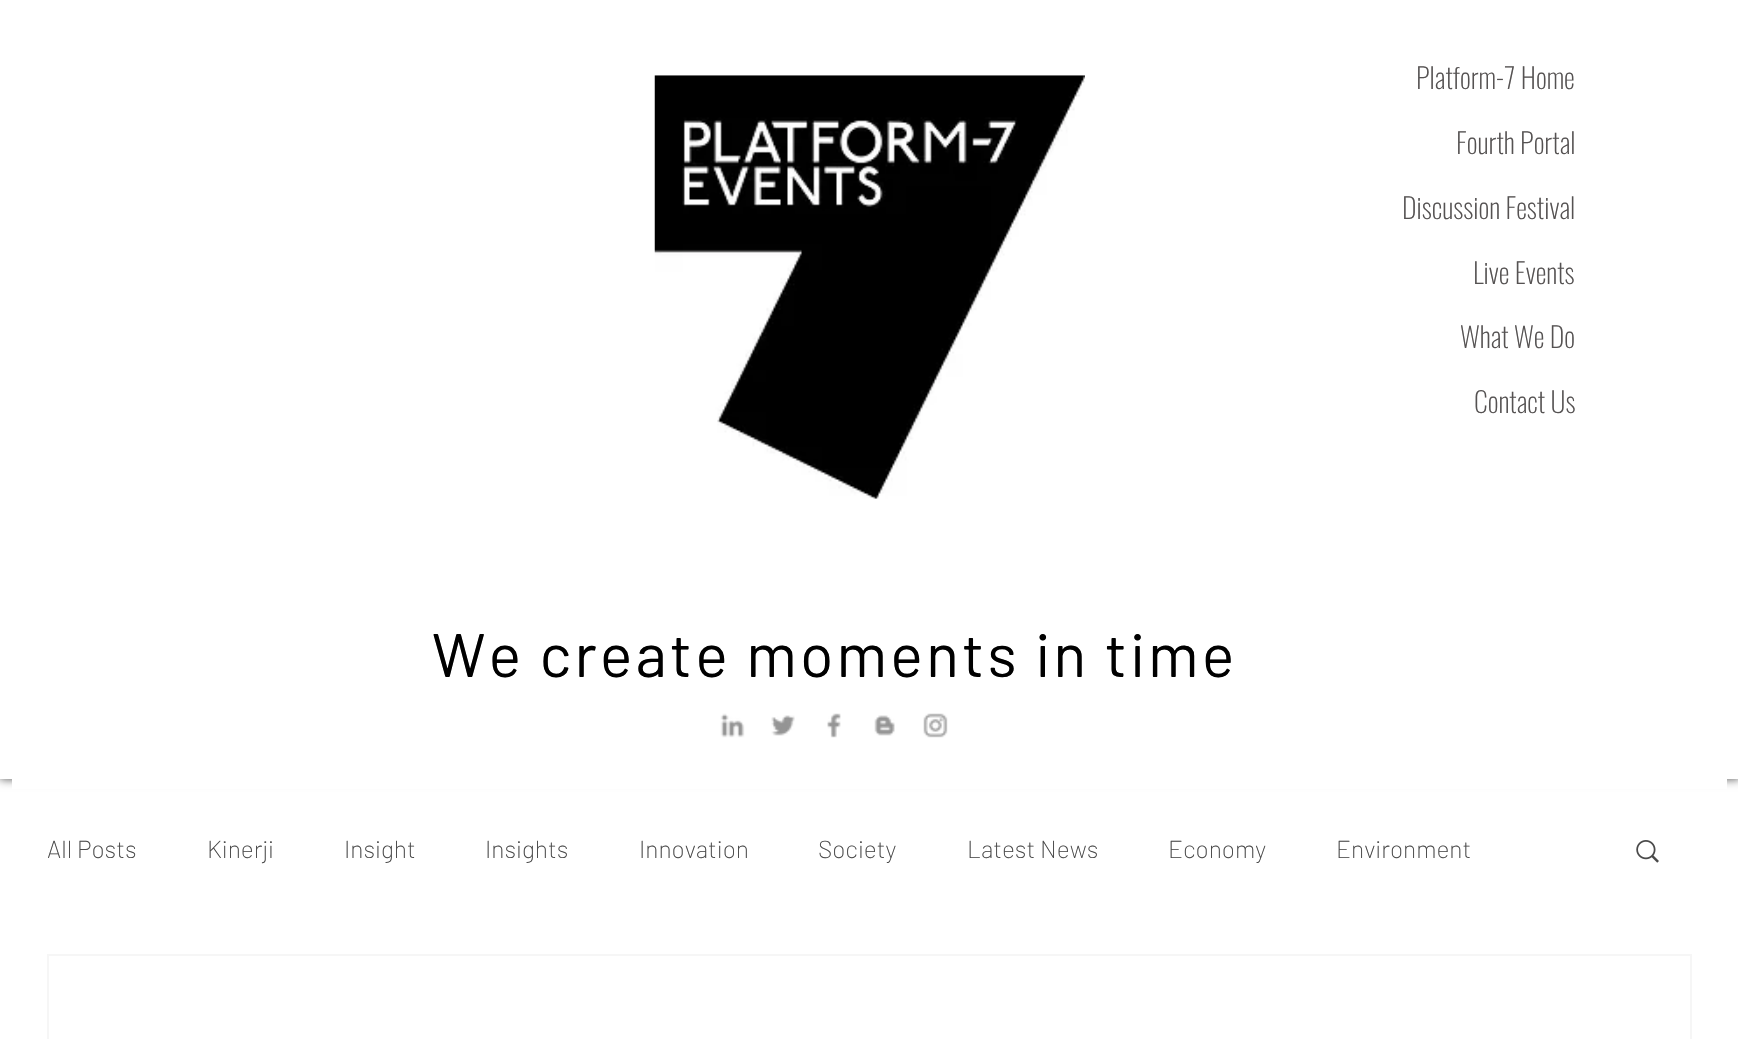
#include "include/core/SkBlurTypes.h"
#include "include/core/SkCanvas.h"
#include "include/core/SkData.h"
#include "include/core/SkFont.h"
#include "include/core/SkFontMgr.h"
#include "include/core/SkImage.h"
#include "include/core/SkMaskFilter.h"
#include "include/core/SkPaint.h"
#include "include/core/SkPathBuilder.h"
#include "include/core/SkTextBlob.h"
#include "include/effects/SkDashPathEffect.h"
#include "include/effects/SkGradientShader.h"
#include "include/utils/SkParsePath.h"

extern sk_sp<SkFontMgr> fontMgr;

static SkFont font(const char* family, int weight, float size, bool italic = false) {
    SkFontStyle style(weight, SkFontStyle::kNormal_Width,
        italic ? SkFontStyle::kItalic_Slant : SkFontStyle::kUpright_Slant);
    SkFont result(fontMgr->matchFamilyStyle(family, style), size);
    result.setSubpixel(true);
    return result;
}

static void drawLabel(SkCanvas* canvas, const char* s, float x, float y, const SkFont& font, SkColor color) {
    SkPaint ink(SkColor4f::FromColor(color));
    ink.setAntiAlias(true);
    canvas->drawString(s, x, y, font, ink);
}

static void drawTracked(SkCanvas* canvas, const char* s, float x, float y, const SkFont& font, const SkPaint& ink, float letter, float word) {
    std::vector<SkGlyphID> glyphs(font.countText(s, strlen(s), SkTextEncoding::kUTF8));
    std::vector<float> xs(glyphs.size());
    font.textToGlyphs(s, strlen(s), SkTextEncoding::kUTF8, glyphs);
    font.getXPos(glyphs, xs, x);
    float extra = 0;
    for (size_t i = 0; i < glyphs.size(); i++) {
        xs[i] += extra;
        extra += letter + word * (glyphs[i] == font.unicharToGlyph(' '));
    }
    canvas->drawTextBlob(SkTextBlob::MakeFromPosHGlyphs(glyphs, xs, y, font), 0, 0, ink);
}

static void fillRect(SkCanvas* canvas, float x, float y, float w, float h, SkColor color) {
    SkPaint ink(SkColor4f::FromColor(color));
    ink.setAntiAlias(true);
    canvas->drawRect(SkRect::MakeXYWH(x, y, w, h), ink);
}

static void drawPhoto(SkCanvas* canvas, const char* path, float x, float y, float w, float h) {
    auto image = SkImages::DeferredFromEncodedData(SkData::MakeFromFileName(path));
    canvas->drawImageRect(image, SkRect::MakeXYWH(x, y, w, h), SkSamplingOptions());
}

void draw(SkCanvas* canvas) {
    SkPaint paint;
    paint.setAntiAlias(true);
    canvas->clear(0xFFFFFFFF);
    paint.setColor(0xB3000000);
    paint.setMaskFilter(SkMaskFilter::MakeBlur(kNormal_SkBlurStyle, 4.5f));
    canvas->drawRect(SkRect::MakeXYWH(0, 0, 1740, 779), paint);
    paint.setMaskFilter(nullptr);
    fillRect(canvas, 0, 0, 1738, 779, 0xFFFFFFFF);
    drawPhoto(canvas, "assets/img1.png", 654, 75, 431, 424);
    SkFont font1 = font("Oswald", 200, 28);
    drawLabel(canvas, "Platform-7 Home", 1416, 89, font1, 0xFF555252);
    drawLabel(canvas, "Fourth Portal", 1456, 154, font1, 0xFF555252);
    drawLabel(canvas, "Discussion Festival", 1402, 219, font1, 0xFF555252);
    drawLabel(canvas, "Live Events", 1473, 284, font1, 0xFF555252);
    drawLabel(canvas, "What We Do", 1460, 348, font1, 0xFF555252);
    drawLabel(canvas, "Contact Us", 1474, 413, font1, 0xFF555252);
    SkFont font2 = font("Barlow", 400, 61.25f);
    paint.setColor(0xFF000000);
    drawTracked(canvas, "We create moments in time", 432, 677, font2, paint, 3.05f, 0);
    drawPhoto(canvas, "assets/img2.png", 720, 713, 25, 25);
    drawPhoto(canvas, "assets/img3.png", 771, 715, 24, 21);
    drawPhoto(canvas, "assets/img4.png", 827, 713, 14, 25);
    drawPhoto(canvas, "assets/img5.png", 874, 715, 21, 21);
    drawPhoto(canvas, "assets/img6.png", 923, 713, 25, 25);
    fillRect(canvas, 12, 779, 1715, 10, 0xFFFFFFFF);
    SkFont font3 = font("Barlow", 200, 24.5f);
    drawLabel(canvas, "All Posts", 47, 858, font3, 0xFF4A4A4A);
    drawLabel(canvas, "Kinerji", 207, 858, font3, 0xFF4A4A4A);
    drawLabel(canvas, "Insight", 344, 858, font3, 0xFF4A4A4A);
    drawLabel(canvas, "Insights", 485, 858, font3, 0xFF4A4A4A);
    drawLabel(canvas, "Innovation", 639, 858, font3, 0xFF4A4A4A);
    drawLabel(canvas, "Society", 818, 858, font3, 0xFF4A4A4A);
    drawLabel(canvas, "Latest News", 967, 858, font3, 0xFF4A4A4A);
    drawLabel(canvas, "Economy", 1168, 858, font3, 0xFF4A4A4A);
    drawLabel(canvas, "Environment", 1336, 858, font3, 0xFF4A4A4A);
    drawPhoto(canvas, "assets/img7.png", 1636, 840, 23, 23);
    paint.setStroke(true);
    paint.setStrokeWidth(2);
    paint.setColor(0xFFF6F6F6);
    canvas->drawRect(SkRect::MakeXYWH(48, 955, 1643, 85), paint);
}
